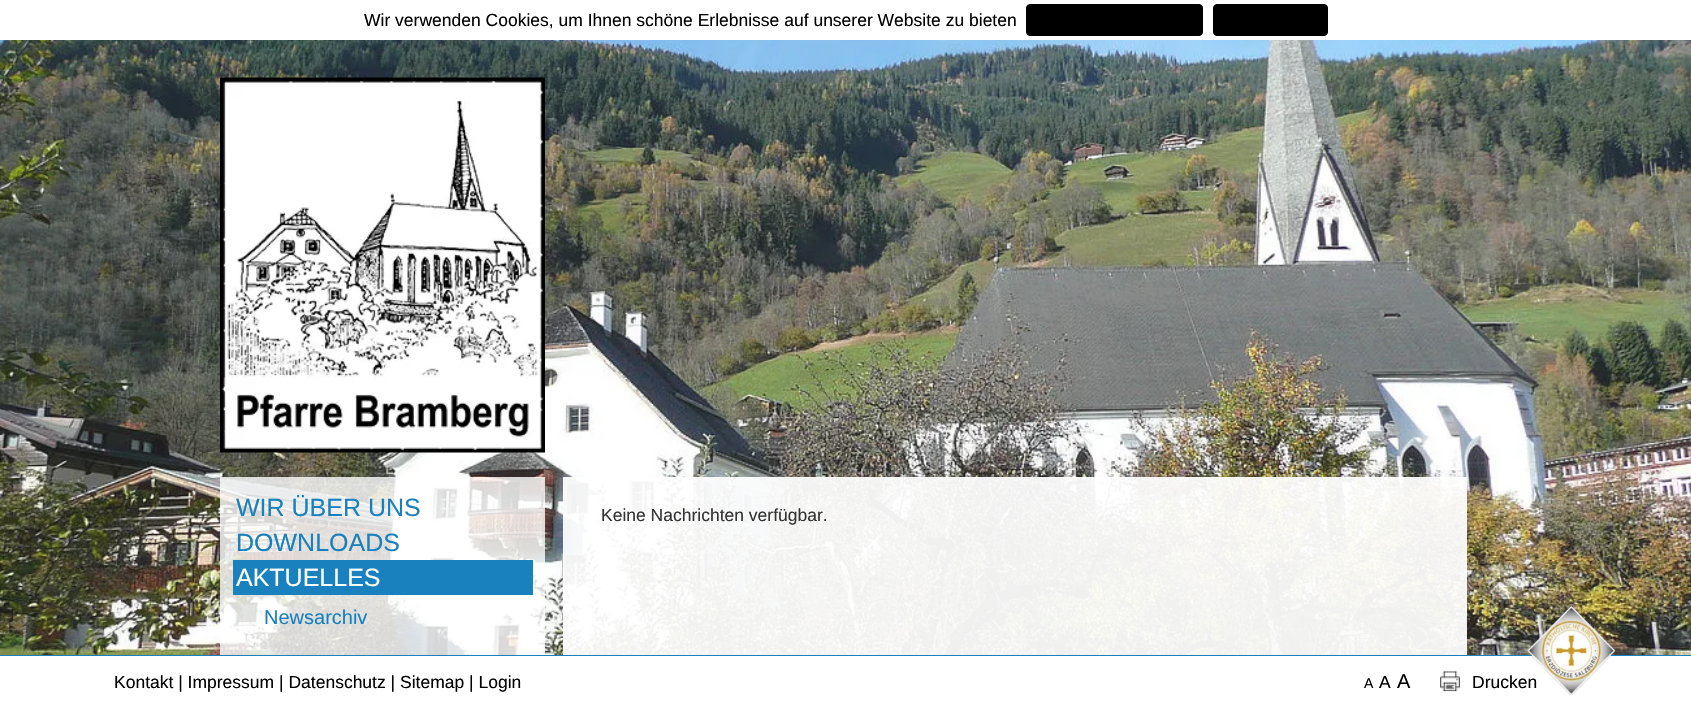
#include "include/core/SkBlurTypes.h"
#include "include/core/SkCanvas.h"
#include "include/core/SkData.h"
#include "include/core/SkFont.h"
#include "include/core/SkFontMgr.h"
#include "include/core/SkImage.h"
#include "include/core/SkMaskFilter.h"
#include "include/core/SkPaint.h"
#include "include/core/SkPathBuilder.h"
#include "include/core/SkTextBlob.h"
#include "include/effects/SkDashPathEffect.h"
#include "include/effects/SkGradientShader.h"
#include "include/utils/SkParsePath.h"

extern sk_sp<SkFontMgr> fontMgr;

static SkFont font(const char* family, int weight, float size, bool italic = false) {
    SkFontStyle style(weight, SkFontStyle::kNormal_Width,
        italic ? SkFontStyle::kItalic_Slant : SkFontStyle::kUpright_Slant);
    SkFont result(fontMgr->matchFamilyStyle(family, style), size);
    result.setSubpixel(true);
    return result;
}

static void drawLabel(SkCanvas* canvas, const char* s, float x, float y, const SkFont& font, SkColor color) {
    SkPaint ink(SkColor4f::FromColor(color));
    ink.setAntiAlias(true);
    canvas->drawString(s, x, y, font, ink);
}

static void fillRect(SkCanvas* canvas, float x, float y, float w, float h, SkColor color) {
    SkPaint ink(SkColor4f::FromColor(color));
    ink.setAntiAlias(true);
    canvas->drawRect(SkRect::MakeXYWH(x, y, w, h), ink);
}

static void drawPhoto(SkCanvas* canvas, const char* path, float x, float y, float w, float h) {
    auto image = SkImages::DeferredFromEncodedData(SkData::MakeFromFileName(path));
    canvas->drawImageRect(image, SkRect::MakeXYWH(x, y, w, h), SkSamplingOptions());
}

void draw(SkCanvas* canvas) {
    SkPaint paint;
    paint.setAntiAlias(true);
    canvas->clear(0xFFFFFFFF);
    SkFont font1 = font("Liberation Sans", 400, 17.5f);
    drawLabel(canvas, "Wir verwenden Cookies, um Ihnen schöne Erlebnisse auf unserer Website zu bieten", 364, 26, font1, 0xFF000000);
    paint.setColor(0xFF000000);
    canvas->drawRoundRect(SkRect::MakeXYWH(1026.5f, 4.5f, 176, 31), 3.5f, 3.5f, paint);
    paint.setStroke(true);
    paint.setStrokeWidth(1);
    canvas->drawRoundRect(SkRect::MakeXYWH(1026.5f, 4.5f, 176, 31), 3.5f, 3.5f, paint);
    paint.setStroke(false);
    canvas->drawRoundRect(SkRect::MakeXYWH(1213.5f, 4.5f, 114, 31), 3.5f, 3.5f, paint);
    paint.setStroke(true);
    canvas->drawRoundRect(SkRect::MakeXYWH(1213.5f, 4.5f, 114, 31), 3.5f, 3.5f, paint);
    drawPhoto(canvas, "assets/img1.png", 0, 40, 1691, 615);
    drawPhoto(canvas, "assets/img2.png", 220, 77, 325, 376);
    fillRect(canvas, 220, 477, 325, 178, 0xCCFFFFFF);
    SkFont font2 = font("Liberation Sans", 400, 25);
    drawLabel(canvas, "WIR ÜBER UNS", 236, 516, font2, 0xFF1881BD);
    drawLabel(canvas, "DOWNLOADS", 236, 551, font2, 0xFF1881BD);
    fillRect(canvas, 233, 560, 300, 35, 0xFF1981BD);
    drawLabel(canvas, "AKTUELLES", 236, 586, font2, 0xFFFFFFFF);
    SkFont font3 = font("Liberation Sans", 400, 20);
    drawLabel(canvas, "Newsarchiv", 264, 624, font3, 0xFF1881BD);
    fillRect(canvas, 563, 477, 904, 178, 0xEDFFFFFF);
    drawLabel(canvas, "Keine Nachrichten verfügbar.", 601, 521, font1, 0xFF333333);
    fillRect(canvas, 0, 655, 1691, 1, 0xFF1881BD);
    drawLabel(canvas, "Kontakt | Impressum | Datenschutz | Sitemap | Login", 114, 688, font1, 0xFF000000);
    SkFont font4 = font("Liberation Sans", 400, 14);
    drawLabel(canvas, "A", 1364, 688, font4, 0xFF000000);
    drawLabel(canvas, "A", 1379, 688, font1, 0xFF000000);
    drawLabel(canvas, "A", 1397, 688, font3, 0xFF000000);
    drawPhoto(canvas, "assets/img3.png", 1440, 671, 20, 21);
    drawLabel(canvas, "Drucken", 1472, 688, font1, 0xFF000000);
    drawPhoto(canvas, "assets/img4.png", 1527, 606, 88, 89);
}
